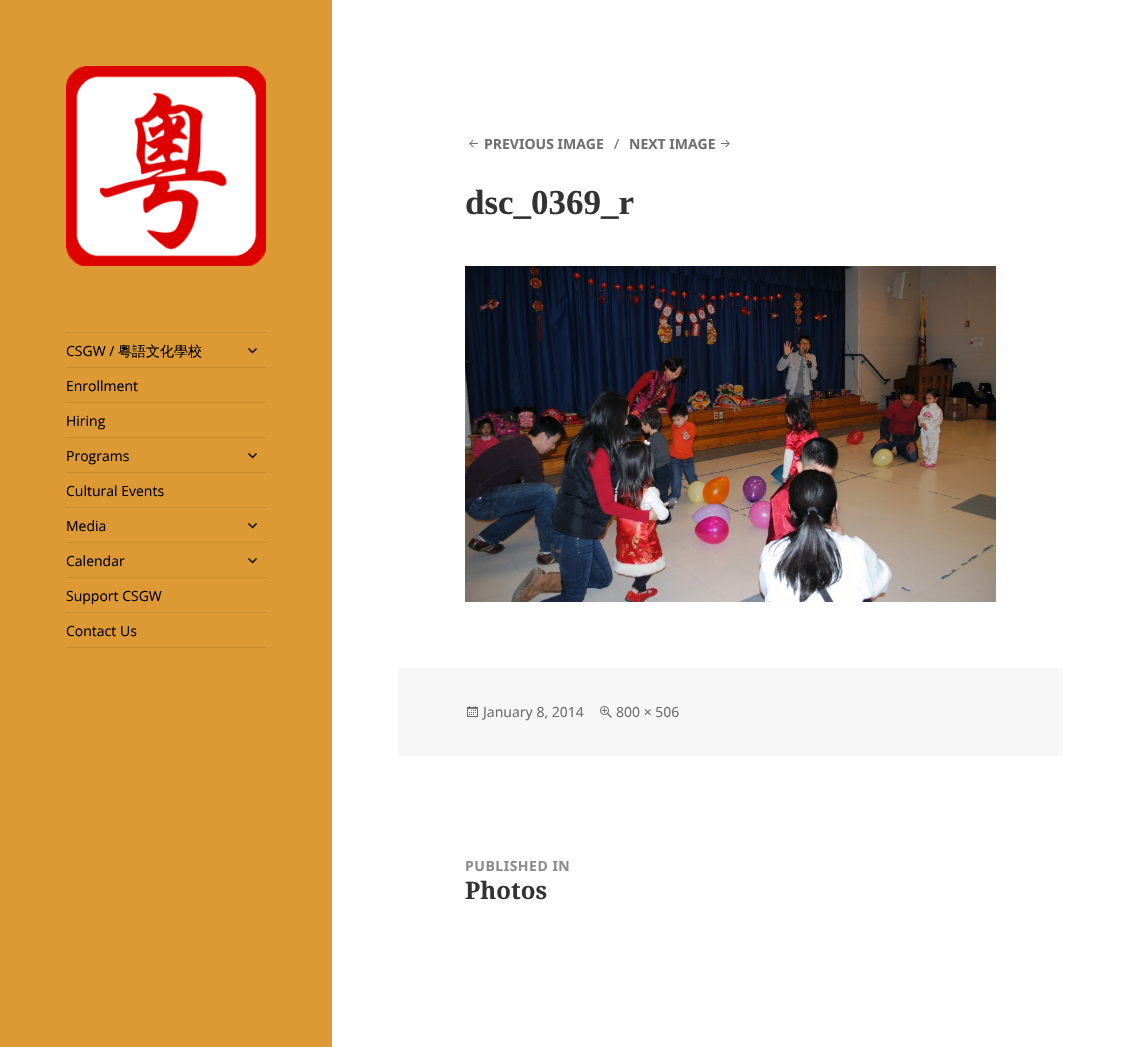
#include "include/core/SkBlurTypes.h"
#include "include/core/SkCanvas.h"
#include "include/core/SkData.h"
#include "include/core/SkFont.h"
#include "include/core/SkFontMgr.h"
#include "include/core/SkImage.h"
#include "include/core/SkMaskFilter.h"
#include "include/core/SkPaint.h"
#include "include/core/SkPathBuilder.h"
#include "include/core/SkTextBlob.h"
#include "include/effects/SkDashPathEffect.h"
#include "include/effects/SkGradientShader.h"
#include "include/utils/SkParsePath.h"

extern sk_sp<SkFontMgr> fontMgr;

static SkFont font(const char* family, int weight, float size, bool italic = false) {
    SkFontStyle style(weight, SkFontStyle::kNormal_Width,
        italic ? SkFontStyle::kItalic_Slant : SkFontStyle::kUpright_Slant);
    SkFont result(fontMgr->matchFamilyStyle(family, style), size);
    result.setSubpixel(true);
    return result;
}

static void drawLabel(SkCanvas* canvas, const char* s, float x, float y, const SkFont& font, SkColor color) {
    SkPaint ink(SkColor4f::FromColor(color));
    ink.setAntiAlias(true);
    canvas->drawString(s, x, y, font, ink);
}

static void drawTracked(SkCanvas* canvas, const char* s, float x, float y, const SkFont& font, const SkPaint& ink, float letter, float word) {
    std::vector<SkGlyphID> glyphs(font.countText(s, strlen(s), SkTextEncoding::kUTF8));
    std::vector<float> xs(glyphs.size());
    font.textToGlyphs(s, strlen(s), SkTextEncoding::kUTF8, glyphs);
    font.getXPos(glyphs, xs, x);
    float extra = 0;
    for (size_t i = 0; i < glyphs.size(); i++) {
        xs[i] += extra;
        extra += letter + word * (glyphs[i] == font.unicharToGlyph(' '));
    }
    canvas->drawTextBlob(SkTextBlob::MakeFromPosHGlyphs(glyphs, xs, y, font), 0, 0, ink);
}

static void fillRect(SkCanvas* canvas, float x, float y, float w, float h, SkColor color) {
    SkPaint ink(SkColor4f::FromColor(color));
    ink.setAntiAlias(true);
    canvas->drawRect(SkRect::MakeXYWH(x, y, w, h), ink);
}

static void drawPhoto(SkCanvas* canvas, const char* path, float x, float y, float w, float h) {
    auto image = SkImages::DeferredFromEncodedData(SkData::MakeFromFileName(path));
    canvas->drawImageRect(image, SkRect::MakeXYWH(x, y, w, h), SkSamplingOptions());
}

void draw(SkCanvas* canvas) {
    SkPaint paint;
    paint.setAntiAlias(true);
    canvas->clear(0xFFFFFFFF);
    fillRect(canvas, 0, 0, 332, 1047, 0xFFDD9933);
    drawPhoto(canvas, "assets/img1.png", 66, 66, 200, 200);
    fillRect(canvas, 66, 332, 200, 1, 0xFFC78A2E);
    fillRect(canvas, 66, 647, 200, 1, 0xFFC78A2E);
    SkFont font1 = font("Open Sans", 400, 14);
    drawLabel(canvas, "CSGW /", 66, 356, font1, 0xFF000000);
    SkFont font2 = font("WenQuanYi Zen Hei", 500, 14);
    drawLabel(canvas, "粵語文化學校", 118, 356, font2, 0xFF000000);
    drawPhoto(canvas, "assets/img2.png", 248, 348, 9, 6);
    fillRect(canvas, 66, 367, 200, 1, 0xFFC78A2E);
    drawLabel(canvas, "Enrollment", 66, 391, font1, 0xFF000000);
    fillRect(canvas, 66, 402, 200, 1, 0xFFC78A2E);
    drawLabel(canvas, "Hiring", 66, 426, font1, 0xFF000000);
    fillRect(canvas, 66, 437, 200, 1, 0xFFC78A2E);
    drawLabel(canvas, "Programs", 66, 461, font1, 0xFF000000);
    drawPhoto(canvas, "assets/img2.png", 248, 453, 9, 6);
    fillRect(canvas, 66, 472, 200, 1, 0xFFC78A2E);
    drawLabel(canvas, "Cultural Events", 66, 496, font1, 0xFF000000);
    fillRect(canvas, 66, 507, 200, 1, 0xFFC78A2E);
    drawLabel(canvas, "Media", 66, 531, font1, 0xFF000000);
    drawPhoto(canvas, "assets/img2.png", 248, 523, 9, 6);
    fillRect(canvas, 66, 542, 200, 1, 0xFFC78A2E);
    drawLabel(canvas, "Calendar", 66, 566, font1, 0xFF000000);
    drawPhoto(canvas, "assets/img2.png", 248, 558, 9, 6);
    fillRect(canvas, 66, 577, 200, 1, 0xFFC78A2E);
    drawLabel(canvas, "Support CSGW", 66, 601, font1, 0xFF000000);
    fillRect(canvas, 66, 612, 200, 1, 0xFFC78A2E);
    drawLabel(canvas, "Contact Us", 66, 636, font1, 0xFF000000);
    drawPhoto(canvas, "assets/img3.png", 469, 139, 9, 9);
    SkFont font3 = font("Noto Sans", 700, 14);
    drawLabel(canvas, "PREVIOUS IMAGE", 484, 149, font3, 0xFF707070);
    SkFont font4 = font("Noto Sans", 400, 14);
    drawLabel(canvas, "∕", 614, 149, font4, 0xFF707070);
    drawLabel(canvas, "NEXT IMAGE", 629, 149, font3, 0xFF707070);
    drawPhoto(canvas, "assets/img4.png", 721, 139, 9, 9);
    SkFont font5 = font("Liberation Serif", 700, 35);
    drawLabel(canvas, "dsc_0369_r", 465, 214, font5, 0xFF333333);
    drawPhoto(canvas, "assets/img5.png", 465, 266, 531, 336);
    fillRect(canvas, 398, 668, 665, 88, 0xFFF7F7F7);
    drawPhoto(canvas, "assets/img6.png", 467, 706, 11, 11);
    drawLabel(canvas, "January 8, 2014", 483, 717, font4, 0xFF707070);
    drawPhoto(canvas, "assets/img7.png", 600, 706, 12, 12);
    drawLabel(canvas, "800 × 506", 616, 717, font4, 0xFF707070);
    paint.setColor(0xFF8D8D8D);
    drawTracked(canvas, "PUBLISHED IN", 465, 871, font3, paint, 0.5f, 0);
    SkFont font6 = font("Noto Serif", 700, 24);
    drawLabel(canvas, "Photos", 465, 899, font6, 0xFF333333);
}
